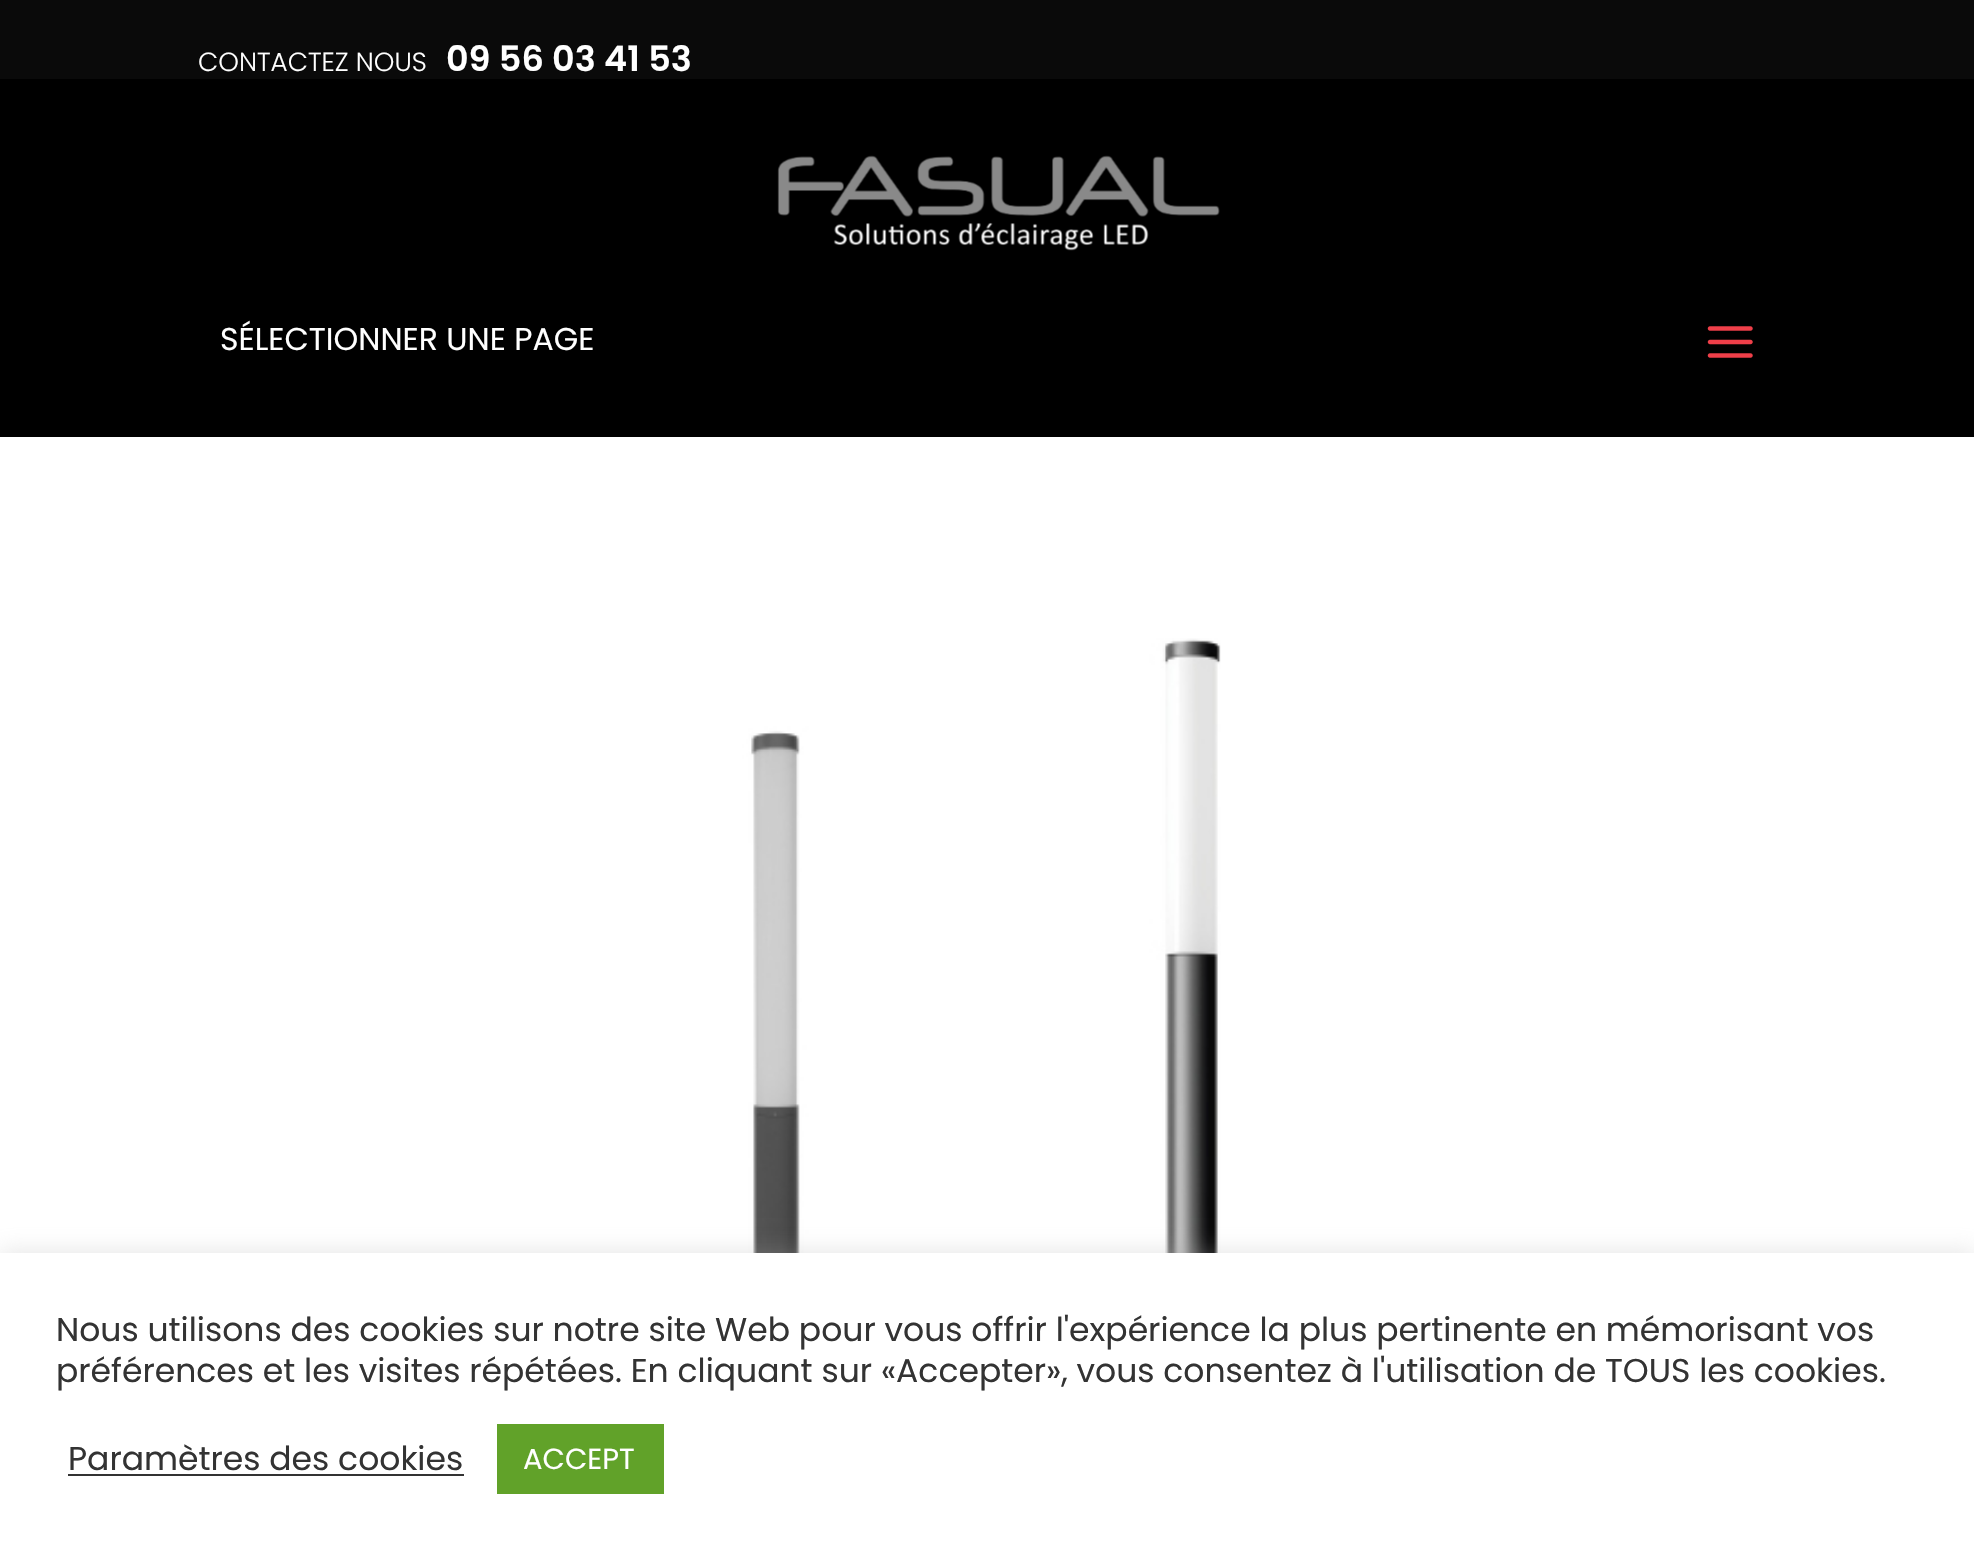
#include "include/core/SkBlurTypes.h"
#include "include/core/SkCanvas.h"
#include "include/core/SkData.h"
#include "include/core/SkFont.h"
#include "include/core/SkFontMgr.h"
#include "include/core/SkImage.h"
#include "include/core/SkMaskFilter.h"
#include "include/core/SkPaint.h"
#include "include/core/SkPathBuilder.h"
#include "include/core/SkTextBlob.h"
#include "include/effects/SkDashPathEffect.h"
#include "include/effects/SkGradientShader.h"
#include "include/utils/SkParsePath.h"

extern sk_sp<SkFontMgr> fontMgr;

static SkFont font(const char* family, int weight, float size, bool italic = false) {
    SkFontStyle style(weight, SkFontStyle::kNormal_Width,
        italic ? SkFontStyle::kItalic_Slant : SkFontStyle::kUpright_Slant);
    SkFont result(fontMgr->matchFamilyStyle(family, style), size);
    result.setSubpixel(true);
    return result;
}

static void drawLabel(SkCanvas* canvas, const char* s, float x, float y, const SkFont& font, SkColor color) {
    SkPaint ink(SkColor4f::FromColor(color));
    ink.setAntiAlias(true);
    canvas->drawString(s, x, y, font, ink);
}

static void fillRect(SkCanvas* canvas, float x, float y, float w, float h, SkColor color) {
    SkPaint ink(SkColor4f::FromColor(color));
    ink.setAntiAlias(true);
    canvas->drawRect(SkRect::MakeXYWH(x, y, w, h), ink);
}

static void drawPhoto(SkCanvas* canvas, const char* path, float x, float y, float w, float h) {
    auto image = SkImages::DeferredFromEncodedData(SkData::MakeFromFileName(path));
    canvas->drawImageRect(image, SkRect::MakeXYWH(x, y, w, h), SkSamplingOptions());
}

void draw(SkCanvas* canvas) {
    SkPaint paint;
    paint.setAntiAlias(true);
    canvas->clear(0xFFFFFFFF);
    fillRect(canvas, 0, 0, 1974, 79, 0xFF0A0A0A);
    SkFont font1 = font("Poppins", 300, 26.25f);
    drawLabel(canvas, "CONTACTEZ NOUS", 198, 71, font1, 0xFFFFFFFF);
    SkFont font2 = font("Poppins", 600, 35);
    drawLabel(canvas, "09 56 03 41 53", 446, 71, font2, 0xFFFFFFFF);
    fillRect(canvas, 0, 79, 1974, 358, 0xFF000000);
    drawPhoto(canvas, "assets/img1.png", 777, 155, 443, 96);
    SkFont font3 = font("Poppins", 400, 31.5f);
    drawLabel(canvas, "SÉLECTIONNER UNE PAGE", 220, 350, font3, 0xFFFFFFFF);
    drawPhoto(canvas, "assets/img2.png", 1707, 326, 46, 32);
    drawPhoto(canvas, "assets/img3.png", 742, 638, 479, 615);
    paint.setColor(0x4DACABAB);
    paint.setMaskFilter(SkMaskFilter::MakeBlur(kNormal_SkBlurStyle, 11));
    canvas->drawRect(SkRect::MakeXYWH(0, 1251, 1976, 308), paint);
    paint.setMaskFilter(nullptr);
    fillRect(canvas, 0, 1253, 1974, 308, 0xFFFFFFFF);
    SkFont font4 = font("Poppins", 400, 33);
    drawLabel(canvas, "Nous utilisons des cookies sur notre site Web pour vous offrir l'expérience la plus pertinente en mémorisant vos", 56, 1341, font4, 0xFF333333);
    drawLabel(canvas, "préférences et les visites répétées. En cliquant sur «Accepter», vous consentez à l'utilisation de TOUS les cookies.", 56, 1382, font4, 0xFF333333);
    drawLabel(canvas, "Paramètres des cookies", 68, 1470, font4, 0xFF333333);
    fillRect(canvas, 68, 1474, 396, 2, 0xFF333333);
    fillRect(canvas, 497, 1424, 167, 70, 0xFF61A229);
    SkFont font5 = font("Poppins", 400, 29);
    drawLabel(canvas, "ACCEPT", 523, 1469, font5, 0xFFFFFFFF);
}
